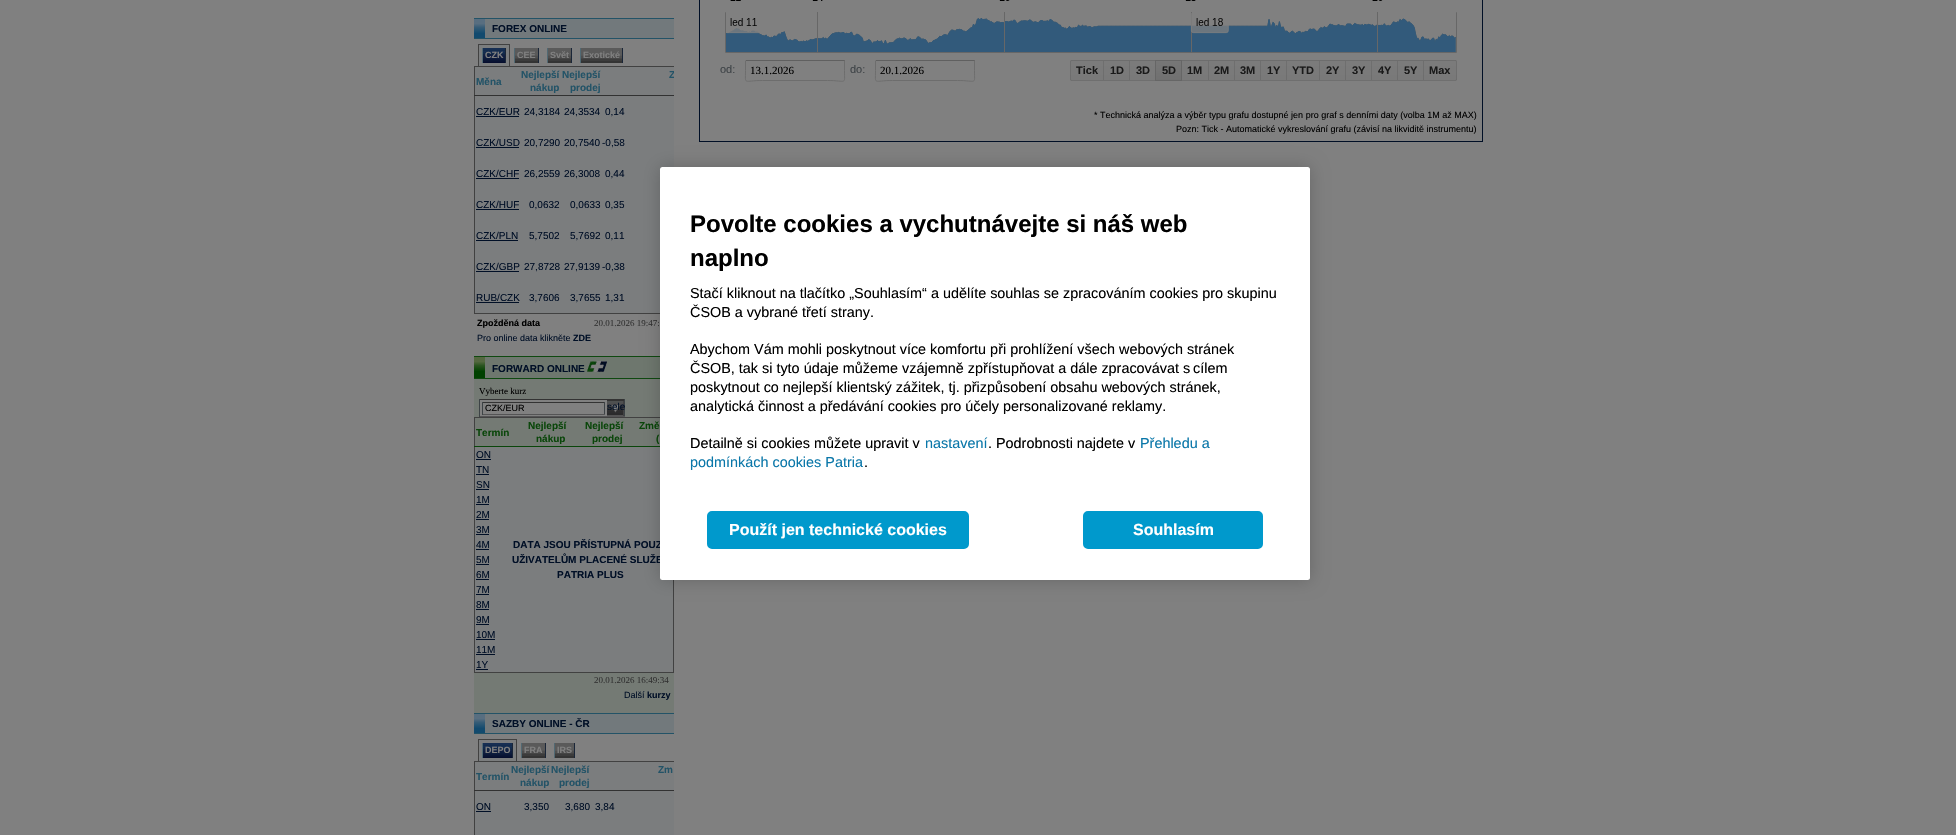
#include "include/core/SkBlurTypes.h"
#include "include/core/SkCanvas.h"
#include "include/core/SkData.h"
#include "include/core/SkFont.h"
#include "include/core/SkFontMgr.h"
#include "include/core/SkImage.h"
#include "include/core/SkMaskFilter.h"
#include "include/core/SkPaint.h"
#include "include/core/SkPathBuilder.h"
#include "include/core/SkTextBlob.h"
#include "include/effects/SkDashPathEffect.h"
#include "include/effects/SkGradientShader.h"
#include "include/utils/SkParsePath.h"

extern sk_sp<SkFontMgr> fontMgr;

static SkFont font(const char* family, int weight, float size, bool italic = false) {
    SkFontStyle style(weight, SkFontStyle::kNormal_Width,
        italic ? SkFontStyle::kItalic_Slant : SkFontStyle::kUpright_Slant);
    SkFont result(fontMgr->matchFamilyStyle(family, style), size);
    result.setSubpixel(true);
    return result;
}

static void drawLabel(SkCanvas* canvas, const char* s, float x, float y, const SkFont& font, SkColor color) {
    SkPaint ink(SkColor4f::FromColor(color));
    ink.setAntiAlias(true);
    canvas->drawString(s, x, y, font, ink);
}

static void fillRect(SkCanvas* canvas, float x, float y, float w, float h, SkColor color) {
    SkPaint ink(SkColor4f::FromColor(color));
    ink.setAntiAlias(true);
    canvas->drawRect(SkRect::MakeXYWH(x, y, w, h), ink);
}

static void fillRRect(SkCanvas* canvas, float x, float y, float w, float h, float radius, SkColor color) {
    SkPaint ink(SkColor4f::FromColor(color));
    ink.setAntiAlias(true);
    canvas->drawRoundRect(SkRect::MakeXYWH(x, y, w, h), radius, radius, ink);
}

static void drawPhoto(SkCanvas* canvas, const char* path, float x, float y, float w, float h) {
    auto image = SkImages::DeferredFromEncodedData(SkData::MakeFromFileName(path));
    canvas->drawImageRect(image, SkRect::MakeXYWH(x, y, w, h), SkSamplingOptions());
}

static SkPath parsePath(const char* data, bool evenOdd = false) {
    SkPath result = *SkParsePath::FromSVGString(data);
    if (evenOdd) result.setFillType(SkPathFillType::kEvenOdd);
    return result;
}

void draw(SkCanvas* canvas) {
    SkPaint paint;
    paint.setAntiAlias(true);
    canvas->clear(0xFF808080);
    fillRect(canvas, 485, 19, 189, 19, 0xFF72797C);
    drawPhoto(canvas, "assets/img1.png", 474, 19, 11, 19);
    fillRect(canvas, 474, 18, 200, 1, 0xFF235367);
    SkFont font1 = font("Liberation Sans", 700, 10);
    drawLabel(canvas, "FOREX ONLINE", 492, 32, font1, 0xFF000F26);
    fillRect(canvas, 474, 38, 200, 1, 0xFF235367);
    fillRect(canvas, 474, 66, 200, 1, 0xFF414141);
    fillRect(canvas, 479, 45, 30, 21, 0xFF7B7D7E);
    drawPhoto(canvas, "assets/img2.png", 483, 48, 22, 15);
    drawPhoto(canvas, "assets/img3.png", 515, 48, 23, 15);
    drawPhoto(canvas, "assets/img3.png", 548, 48, 23, 15);
    drawPhoto(canvas, "assets/img4.png", 581, 48, 41, 15);
    SkFont font2 = font("Liberation Sans", 700, 9);
    drawLabel(canvas, "CZK", 485, 58, font2, 0xFF808080);
    fillRect(canvas, 478, 44, 32, 1, 0xFF414141);
    fillRect(canvas, 509, 44, 1, 22, 0xFF414141);
    fillRect(canvas, 478, 44, 1, 22, 0xFF414141);
    fillRect(canvas, 505, 48, 1, 15, 0xFF1A2638);
    fillRect(canvas, 482, 48, 1, 15, 0xFF516973);
    drawLabel(canvas, "CEE", 517, 58, font2, 0xFF808080);
    fillRect(canvas, 538, 48, 1, 15, 0xFF1A2638);
    fillRect(canvas, 514, 48, 1, 15, 0xFF516973);
    drawLabel(canvas, "Svět", 550, 58, font2, 0xFF808080);
    fillRect(canvas, 571, 48, 1, 15, 0xFF1A2638);
    fillRect(canvas, 547, 48, 1, 15, 0xFF516973);
    drawLabel(canvas, "Exotické", 583, 58, font2, 0xFF808080);
    fillRect(canvas, 622, 48, 1, 15, 0xFF1A2638);
    fillRect(canvas, 580, 48, 1, 15, 0xFF516973);
    fillRect(canvas, 475, 67, 199, 246, 0xFF7B7D7E);
    fillRect(canvas, 474, 313, 186, 1, 0xFF414141);
    fillRect(canvas, 474, 67, 1, 247, 0xFF414141);
    drawLabel(canvas, "Nejlepší", 521, 78, font1, 0xFF235367);
    drawLabel(canvas, "nákup", 530, 91, font1, 0xFF235367);
    drawLabel(canvas, "Nejlepší", 562, 78, font1, 0xFF235367);
    drawLabel(canvas, "prodej", 570, 91, font1, 0xFF235367);
    fillRect(canvas, 474, 95, 200, 1, 0xFF323232);
    canvas->save();
    canvas->clipRect(SkRect::MakeXYWH(474, 18, 200, 328));
    drawLabel(canvas, "Z", 669, 78, font1, 0xFF235367);
    canvas->restore();
    drawLabel(canvas, "Měna", 476, 85, font1, 0xFF235367);
    SkFont font3 = font("Liberation Sans", 400, 10);
    drawLabel(canvas, "CZK/EUR", 476, 115, font3, 0xFF000F26);
    fillRect(canvas, 476, 116, 43, 1, 0xFF000F26);
    drawLabel(canvas, "24,3184", 524, 115, font3, 0xFF000F26);
    drawLabel(canvas, "24,3534", 564, 115, font3, 0xFF000F26);
    drawLabel(canvas, "0,14", 605, 115, font3, 0xFF000F26);
    drawLabel(canvas, "CZK/USD", 476, 146, font3, 0xFF000F26);
    fillRect(canvas, 476, 147, 43, 1, 0xFF000F26);
    drawLabel(canvas, "20,7290", 524, 146, font3, 0xFF000F26);
    drawLabel(canvas, "20,7540", 564, 146, font3, 0xFF000F26);
    drawLabel(canvas, "-0,58", 602, 146, font3, 0xFF000F26);
    drawLabel(canvas, "CZK/CHF", 476, 177, font3, 0xFF000F26);
    fillRect(canvas, 476, 178, 43, 1, 0xFF000F26);
    drawLabel(canvas, "26,2559", 524, 177, font3, 0xFF000F26);
    drawLabel(canvas, "26,3008", 564, 177, font3, 0xFF000F26);
    drawLabel(canvas, "0,44", 605, 177, font3, 0xFF000F26);
    drawLabel(canvas, "CZK/HUF", 476, 208, font3, 0xFF000F26);
    fillRect(canvas, 476, 209, 43, 1, 0xFF000F26);
    drawLabel(canvas, "0,0632", 529, 208, font3, 0xFF000F26);
    drawLabel(canvas, "0,0633", 570, 208, font3, 0xFF000F26);
    drawLabel(canvas, "0,35", 605, 208, font3, 0xFF000F26);
    drawLabel(canvas, "CZK/PLN", 476, 239, font3, 0xFF000F26);
    fillRect(canvas, 476, 240, 42, 1, 0xFF000F26);
    drawLabel(canvas, "5,7502", 529, 239, font3, 0xFF000F26);
    drawLabel(canvas, "5,7692", 570, 239, font3, 0xFF000F26);
    drawLabel(canvas, "0,11", 605, 239, font3, 0xFF000F26);
    drawLabel(canvas, "CZK/GBP", 476, 270, font3, 0xFF000F26);
    fillRect(canvas, 476, 271, 43, 1, 0xFF000F26);
    drawLabel(canvas, "27,8728", 524, 270, font3, 0xFF000F26);
    drawLabel(canvas, "27,9139", 564, 270, font3, 0xFF000F26);
    drawLabel(canvas, "-0,38", 602, 270, font3, 0xFF000F26);
    drawLabel(canvas, "RUB/CZK", 476, 301, font3, 0xFF000F26);
    fillRect(canvas, 476, 302, 43, 1, 0xFF000F26);
    drawLabel(canvas, "3,7606", 529, 301, font3, 0xFF000F26);
    drawLabel(canvas, "3,7655", 570, 301, font3, 0xFF000F26);
    drawLabel(canvas, "1,31", 605, 301, font3, 0xFF000F26);
    drawLabel(canvas, "Zpožděná data", 477, 326, font2, 0xFF000000);
    SkFont font4 = font("Liberation Serif", 400, 9);
    drawLabel(canvas, "20.01.2026 19:47:", 594, 326, font4, 0xFF323232);
    SkFont font5 = font("Liberation Sans", 400, 9);
    drawLabel(canvas, "Pro online data klikněte", 477, 341, font5, 0xFF000F26);
    drawLabel(canvas, "ZDE", 573, 341, font2, 0xFF000F26);
    fillRect(canvas, 474, 379, 200, 334, 0xFF747A74);
    fillRect(canvas, 485, 357, 175, 21, 0xFF6E776E);
    drawPhoto(canvas, "assets/img5.png", 474, 357, 11, 21);
    fillRect(canvas, 474, 356, 186, 1, 0xFF0F4910);
    drawLabel(canvas, "FORWARD ONLINE", 492, 372, font1, 0xFF000F26);
    drawPhoto(canvas, "assets/img6.png", 587, 361, 20, 11);
    fillRect(canvas, 474, 378, 186, 1, 0xFF0F4910);
    fillRect(canvas, 474, 417, 186, 1, 0xFF414141);
    drawLabel(canvas, "Vyberte kurz", 479, 394, font4, 0xFF000000);
    fillRect(canvas, 480, 400, 127, 16, 0xFF808080);
    fillRect(canvas, 479, 399, 146, 1, 0xFF333333);
    fillRect(canvas, 624, 399, 1, 18, 0xFF3D4346);
    fillRect(canvas, 479, 416, 146, 1, 0xFF545455);
    fillRect(canvas, 479, 399, 1, 18, 0xFF3D4346);
    fillRect(canvas, 482, 402, 123, 1, 0xFF333333);
    fillRect(canvas, 604, 402, 1, 13, 0xFF3D4346);
    fillRect(canvas, 482, 414, 123, 1, 0xFF545455);
    fillRect(canvas, 482, 402, 1, 13, 0xFF3D4346);
    drawLabel(canvas, "CZK/EUR", 485, 411, font5, 0xFF000000);
    drawPhoto(canvas, "assets/img7.png", 607, 400, 17, 16);
    drawLabel(canvas, "sele", 607, 410, font3, 0xFF000F26);
    fillRect(canvas, 475, 447, 198, 225, 0xFF7B7D7E);
    fillRect(canvas, 673, 580, 1, 93, 0xFF414141);
    fillRect(canvas, 474, 672, 200, 1, 0xFF414141);
    fillRect(canvas, 474, 418, 1, 255, 0xFF414141);
    drawLabel(canvas, "Termín", 476, 436, font1, 0xFF0A460A);
    drawLabel(canvas, "Nejlepší", 528, 429, font1, 0xFF0A460A);
    drawLabel(canvas, "nákup", 536, 442, font1, 0xFF0A460A);
    drawLabel(canvas, "Nejlepší", 585, 429, font1, 0xFF0A460A);
    drawLabel(canvas, "prodej", 592, 442, font1, 0xFF0A460A);
    fillRect(canvas, 474, 446, 186, 1, 0xFF0A460A);
    drawLabel(canvas, "Změ", 639, 429, font1, 0xFF0A460A);
    drawLabel(canvas, "(", 656, 442, font1, 0xFF0A460A);
    drawLabel(canvas, "ON", 476, 458, font3, 0xFF000F26);
    fillRect(canvas, 476, 459, 15, 1, 0xFF000F26);
    drawLabel(canvas, "DATA JSOU PŘÍSTUPNÁ POUZ", 513, 548, font1, 0xFF000F26);
    drawLabel(canvas, "UŽIVATELŮM PLACENÉ SLUŽB", 512, 563, font1, 0xFF000F26);
    drawLabel(canvas, "PATRIA PLUS", 557, 578, font1, 0xFF000F26);
    drawLabel(canvas, "TN", 476, 473, font3, 0xFF000F26);
    fillRect(canvas, 476, 474, 13, 1, 0xFF000F26);
    drawLabel(canvas, "SN", 476, 488, font3, 0xFF000F26);
    fillRect(canvas, 476, 489, 13, 1, 0xFF000F26);
    drawLabel(canvas, "1M", 476, 503, font3, 0xFF000F26);
    fillRect(canvas, 476, 504, 13, 1, 0xFF000F26);
    drawLabel(canvas, "2M", 476, 518, font3, 0xFF000F26);
    fillRect(canvas, 476, 519, 13, 1, 0xFF000F26);
    drawLabel(canvas, "3M", 476, 533, font3, 0xFF000F26);
    fillRect(canvas, 476, 534, 13, 1, 0xFF000F26);
    drawLabel(canvas, "4M", 476, 548, font3, 0xFF000F26);
    fillRect(canvas, 476, 549, 13, 1, 0xFF000F26);
    drawLabel(canvas, "5M", 476, 563, font3, 0xFF000F26);
    fillRect(canvas, 476, 564, 13, 1, 0xFF000F26);
    drawLabel(canvas, "6M", 476, 578, font3, 0xFF000F26);
    fillRect(canvas, 476, 579, 13, 1, 0xFF000F26);
    drawLabel(canvas, "7M", 476, 593, font3, 0xFF000F26);
    fillRect(canvas, 476, 594, 13, 1, 0xFF000F26);
    drawLabel(canvas, "8M", 476, 608, font3, 0xFF000F26);
    fillRect(canvas, 476, 609, 13, 1, 0xFF000F26);
    drawLabel(canvas, "9M", 476, 623, font3, 0xFF000F26);
    fillRect(canvas, 476, 624, 13, 1, 0xFF000F26);
    drawLabel(canvas, "10M", 476, 638, font3, 0xFF000F26);
    fillRect(canvas, 476, 639, 19, 1, 0xFF000F26);
    drawLabel(canvas, "11M", 476, 653, font3, 0xFF000F26);
    fillRect(canvas, 476, 654, 19, 1, 0xFF000F26);
    drawLabel(canvas, "1Y", 476, 668, font3, 0xFF000F26);
    fillRect(canvas, 476, 669, 12, 1, 0xFF000F26);
    drawLabel(canvas, "20.01.2026 16:49:34", 594, 683, font4, 0xFF323232);
    drawLabel(canvas, "Další", 624, 698, font5, 0xFF000F26);
    drawLabel(canvas, "kurzy", 647, 698, font2, 0xFF000F26);
    fillRect(canvas, 485, 714, 189, 19, 0xFF72797C);
    drawPhoto(canvas, "assets/img1.png", 474, 714, 11, 19);
    fillRect(canvas, 474, 713, 200, 1, 0xFF235367);
    drawLabel(canvas, "SAZBY ONLINE - ČR", 492, 727, font1, 0xFF000F26);
    fillRect(canvas, 474, 733, 200, 1, 0xFF235367);
    fillRect(canvas, 474, 761, 200, 1, 0xFF414141);
    fillRect(canvas, 479, 740, 37, 21, 0xFF7B7D7E);
    drawPhoto(canvas, "assets/img8.png", 483, 743, 29, 15);
    drawPhoto(canvas, "assets/img3.png", 522, 743, 23, 15);
    drawPhoto(canvas, "assets/img9.png", 555, 743, 19, 15);
    drawLabel(canvas, "DEPO", 485, 753, font2, 0xFF808080);
    fillRect(canvas, 478, 739, 39, 1, 0xFF414141);
    fillRect(canvas, 516, 739, 1, 22, 0xFF414141);
    fillRect(canvas, 478, 739, 1, 22, 0xFF414141);
    fillRect(canvas, 512, 743, 1, 15, 0xFF1A2638);
    fillRect(canvas, 482, 743, 1, 15, 0xFF516973);
    drawLabel(canvas, "FRA", 524, 753, font2, 0xFF808080);
    fillRect(canvas, 545, 743, 1, 15, 0xFF1A2638);
    fillRect(canvas, 521, 743, 1, 15, 0xFF516973);
    drawLabel(canvas, "IRS", 557, 753, font2, 0xFF808080);
    fillRect(canvas, 574, 743, 1, 15, 0xFF1A2638);
    fillRect(canvas, 554, 743, 1, 15, 0xFF516973);
    fillRect(canvas, 475, 762, 199, 73, 0xFF7B7D7E);
    fillRect(canvas, 474, 762, 1, 73, 0xFF414141);
    drawLabel(canvas, "Nejlepší", 511, 773, font1, 0xFF235367);
    drawLabel(canvas, "nákup", 520, 786, font1, 0xFF235367);
    drawLabel(canvas, "Nejlepší", 551, 773, font1, 0xFF235367);
    drawLabel(canvas, "prodej", 559, 786, font1, 0xFF235367);
    fillRect(canvas, 474, 790, 200, 1, 0xFF323232);
    drawLabel(canvas, "Zm", 658, 773, font1, 0xFF235367);
    drawLabel(canvas, "Termín", 476, 780, font1, 0xFF235367);
    drawLabel(canvas, "ON", 476, 810, font3, 0xFF000F26);
    fillRect(canvas, 476, 811, 15, 1, 0xFF000F26);
    drawLabel(canvas, "3,350", 524, 810, font3, 0xFF000F26);
    drawLabel(canvas, "3,680", 565, 810, font3, 0xFF000F26);
    drawLabel(canvas, "3,84", 595, 810, font3, 0xFF000F26);
    fillRect(canvas, 1482, 0, 1, 142, 0xFF000F26);
    fillRect(canvas, 699, 141, 784, 1, 0xFF000F26);
    fillRect(canvas, 699, 0, 1, 142, 0xFF000F26);
    drawPhoto(canvas, "assets/img10.png", 725, 0, 732, 53);
    SkFont font6 = font("Liberation Sans", 400, 11);
    drawLabel(canvas, "od:", 720, 73, font6, 0xFF3E4347);
    fillRect(canvas, 746, 60, 99, 1, 0xFF606060);
    paint.setStroke(true);
    paint.setStrokeWidth(1);
    paint.setColor(0xFF6D6D6D);
    canvas->drawPath(parsePath("M844.5 60.5V70.5C844.5 85.5 847 80.5 827.5 80.5H762.5C743 80.5 745.5 85.5 745.5 70.5V60.5"), paint);
    SkFont font7 = font("Liberation Serif", 400, 11);
    drawLabel(canvas, "13.1.2026", 750, 74, font7, 0xFF000000);
    drawLabel(canvas, "do:", 850, 73, font6, 0xFF3E4347);
    fillRect(canvas, 876, 60, 99, 1, 0xFF606060);
    canvas->drawPath(parsePath("M974.5 60.5V70.5C974.5 85.5 977 80.5 957.5 80.5H892.5C873 80.5 875.5 85.5 875.5 70.5V60.5"), paint);
    drawLabel(canvas, "20.1.2026", 880, 74, font7, 0xFF000000);
    paint.setStroke(false);
    {
        const SkColor colors[] = {0xFF7B7B7B, 0xFF797979};
        const float stops[] = {0, 1};
        const SkPoint ends[] = {{1087, 42}, {1087, 61}};
        paint.setShader(SkGradientShader::MakeLinear(ends, colors, stops, 2, SkTileMode::kClamp));
        paint.setAlpha(255);
    }
    canvas->drawRect(SkRect::MakeXYWH(1070, 60, 34, 1), paint);
    {
        const SkColor colors[] = {0xFF7B7B7B, 0xFF797979};
        const float stops[] = {0, 1};
        const SkPoint ends[] = {{1087, 61}, {1087, 80}};
        paint.setShader(SkGradientShader::MakeLinear(ends, colors, stops, 2, SkTileMode::kClamp));
        paint.setAlpha(255);
    }
    canvas->drawRect(SkRect::MakeXYWH(1070, 61, 33, 19), paint);
    {
        const SkColor colors[] = {0xFF7B7B7B, 0xFF797979};
        const float stops[] = {0, 1};
        const SkPoint ends[] = {{1087, 80}, {1087, 99}};
        paint.setShader(SkGradientShader::MakeLinear(ends, colors, stops, 2, SkTileMode::kClamp));
        paint.setAlpha(255);
    }
    canvas->drawRect(SkRect::MakeXYWH(1070, 80, 34, 1), paint);
    paint.setStroke(true);
    paint.setShader(nullptr);
    paint.setColor(0x1A000000);
    canvas->drawPath(parsePath("M1072 60.5H1103.5V80.5H1072C1071 80.5 1070.5 80 1070.5 79V62C1070.5 61 1071 60.5 1072 60.5Z"), paint);
    SkFont font8 = font("Liberation Sans", 700, 11);
    drawLabel(canvas, "Tick", 1076, 74, font8, 0xFF1A1A1A);
    fillRect(canvas, 1103, 80, 26, 1, 0xFF7B7B7B);
    paint.setStroke(false);
    {
        const SkColor colors[] = {0xFF7B7B7B, 0xFF797979};
        const float stops[] = {0, 1};
        const SkPoint ends[] = {{1117, 42}, {1117, 61}};
        paint.setShader(SkGradientShader::MakeLinear(ends, colors, stops, 2, SkTileMode::kClamp));
        paint.setAlpha(255);
    }
    canvas->drawRect(SkRect::MakeXYWH(1103, 60, 27, 1), paint);
    {
        const SkColor colors[] = {0xFF7B7B7B, 0xFF797979};
        const float stops[] = {0, 1};
        const SkPoint ends[] = {{1117, 61}, {1117, 80}};
        paint.setShader(SkGradientShader::MakeLinear(ends, colors, stops, 2, SkTileMode::kClamp));
        paint.setAlpha(255);
    }
    canvas->drawRect(SkRect::MakeXYWH(1103, 61, 26, 19), paint);
    paint.setStroke(true);
    paint.setShader(nullptr);
    paint.setColor(0x1A000000);
    canvas->drawRect(SkRect::MakeXYWH(1103.5f, 60.5f, 26, 20), paint);
    drawLabel(canvas, "1D", 1110, 74, font8, 0xFF1A1A1A);
    fillRect(canvas, 1129, 80, 26, 1, 0xFF7B7B7B);
    paint.setStroke(false);
    {
        const SkColor colors[] = {0xFF7B7B7B, 0xFF797979};
        const float stops[] = {0, 1};
        const SkPoint ends[] = {{1143, 42}, {1143, 61}};
        paint.setShader(SkGradientShader::MakeLinear(ends, colors, stops, 2, SkTileMode::kClamp));
        paint.setAlpha(255);
    }
    canvas->drawRect(SkRect::MakeXYWH(1129, 60, 27, 1), paint);
    {
        const SkColor colors[] = {0xFF7B7B7B, 0xFF797979};
        const float stops[] = {0, 1};
        const SkPoint ends[] = {{1143, 61}, {1143, 80}};
        paint.setShader(SkGradientShader::MakeLinear(ends, colors, stops, 2, SkTileMode::kClamp));
        paint.setAlpha(255);
    }
    canvas->drawRect(SkRect::MakeXYWH(1129, 61, 26, 19), paint);
    paint.setStroke(true);
    paint.setShader(nullptr);
    paint.setColor(0x1A000000);
    canvas->drawRect(SkRect::MakeXYWH(1129.5f, 60.5f, 26, 20), paint);
    drawLabel(canvas, "3D", 1136, 74, font8, 0xFF1A1A1A);
    paint.setStroke(false);
    {
        const SkColor colors[] = {0xFF777777, 0xFF707070};
        const float stops[] = {0, 1};
        const SkPoint ends[] = {{1169, 61}, {1169, 80}};
        paint.setShader(SkGradientShader::MakeLinear(ends, colors, stops, 2, SkTileMode::kClamp));
        paint.setAlpha(255);
    }
    canvas->drawRect(SkRect::MakeXYWH(1156, 61, 25, 19), paint);
    {
        const SkColor colors[] = {0xFF7B7B7B, 0xFF797979};
        const float stops[] = {0, 1};
        const SkPoint ends[] = {{1195, 42}, {1195, 61}};
        paint.setShader(SkGradientShader::MakeLinear(ends, colors, stops, 2, SkTileMode::kClamp));
        paint.setAlpha(255);
    }
    canvas->drawRect(SkRect::MakeXYWH(1181, 60, 28, 1), paint);
    fillRect(canvas, 1182, 80, 26, 1, 0xFF7B7B7B);
    {
        const SkColor colors[] = {0xFF7B7B7B, 0xFF797979};
        const float stops[] = {0, 1};
        const SkPoint ends[] = {{1195, 61}, {1195, 80}};
        paint.setShader(SkGradientShader::MakeLinear(ends, colors, stops, 2, SkTileMode::kClamp));
        paint.setAlpha(255);
    }
    canvas->drawRect(SkRect::MakeXYWH(1182, 61, 26, 19), paint);
    paint.setStroke(true);
    paint.setShader(nullptr);
    paint.setColor(0x1A000000);
    canvas->drawRect(SkRect::MakeXYWH(1181.5f, 60.5f, 27, 20), paint);
    paint.setColor(0xFF666666);
    canvas->drawRect(SkRect::MakeXYWH(1155.5f, 60.5f, 26, 20), paint);
    drawLabel(canvas, "5D", 1162, 74, font8, 0xFF1A1A1A);
    drawLabel(canvas, "1M", 1187, 74, font8, 0xFF1A1A1A);
    fillRect(canvas, 1208, 80, 26, 1, 0xFF7B7B7B);
    paint.setStroke(false);
    {
        const SkColor colors[] = {0xFF7B7B7B, 0xFF797979};
        const float stops[] = {0, 1};
        const SkPoint ends[] = {{1222, 42}, {1222, 61}};
        paint.setShader(SkGradientShader::MakeLinear(ends, colors, stops, 2, SkTileMode::kClamp));
        paint.setAlpha(255);
    }
    canvas->drawRect(SkRect::MakeXYWH(1208, 60, 27, 1), paint);
    {
        const SkColor colors[] = {0xFF7B7B7B, 0xFF797979};
        const float stops[] = {0, 1};
        const SkPoint ends[] = {{1222, 61}, {1222, 80}};
        paint.setShader(SkGradientShader::MakeLinear(ends, colors, stops, 2, SkTileMode::kClamp));
        paint.setAlpha(255);
    }
    canvas->drawRect(SkRect::MakeXYWH(1208, 61, 26, 19), paint);
    paint.setStroke(true);
    paint.setShader(nullptr);
    paint.setColor(0x1A000000);
    canvas->drawRect(SkRect::MakeXYWH(1208.5f, 60.5f, 26, 20), paint);
    drawLabel(canvas, "2M", 1214, 74, font8, 0xFF1A1A1A);
    fillRect(canvas, 1234, 80, 26, 1, 0xFF7B7B7B);
    paint.setStroke(false);
    {
        const SkColor colors[] = {0xFF7B7B7B, 0xFF797979};
        const float stops[] = {0, 1};
        const SkPoint ends[] = {{1248, 42}, {1248, 61}};
        paint.setShader(SkGradientShader::MakeLinear(ends, colors, stops, 2, SkTileMode::kClamp));
        paint.setAlpha(255);
    }
    canvas->drawRect(SkRect::MakeXYWH(1234, 60, 27, 1), paint);
    {
        const SkColor colors[] = {0xFF7B7B7B, 0xFF797979};
        const float stops[] = {0, 1};
        const SkPoint ends[] = {{1248, 61}, {1248, 80}};
        paint.setShader(SkGradientShader::MakeLinear(ends, colors, stops, 2, SkTileMode::kClamp));
        paint.setAlpha(255);
    }
    canvas->drawRect(SkRect::MakeXYWH(1234, 61, 26, 19), paint);
    paint.setStroke(true);
    paint.setShader(nullptr);
    paint.setColor(0x1A000000);
    canvas->drawRect(SkRect::MakeXYWH(1234.5f, 60.5f, 26, 20), paint);
    drawLabel(canvas, "3M", 1240, 74, font8, 0xFF1A1A1A);
    fillRect(canvas, 1260, 80, 26, 1, 0xFF7B7B7B);
    paint.setStroke(false);
    {
        const SkColor colors[] = {0xFF7B7B7B, 0xFF797979};
        const float stops[] = {0, 1};
        const SkPoint ends[] = {{1274, 42}, {1274, 61}};
        paint.setShader(SkGradientShader::MakeLinear(ends, colors, stops, 2, SkTileMode::kClamp));
        paint.setAlpha(255);
    }
    canvas->drawRect(SkRect::MakeXYWH(1260, 60, 27, 1), paint);
    {
        const SkColor colors[] = {0xFF7B7B7B, 0xFF797979};
        const float stops[] = {0, 1};
        const SkPoint ends[] = {{1274, 61}, {1274, 80}};
        paint.setShader(SkGradientShader::MakeLinear(ends, colors, stops, 2, SkTileMode::kClamp));
        paint.setAlpha(255);
    }
    canvas->drawRect(SkRect::MakeXYWH(1260, 61, 26, 19), paint);
    paint.setStroke(true);
    paint.setShader(nullptr);
    paint.setColor(0x1A000000);
    canvas->drawRect(SkRect::MakeXYWH(1260.5f, 60.5f, 26, 20), paint);
    drawLabel(canvas, "1Y", 1267, 74, font8, 0xFF1A1A1A);
    fillRect(canvas, 1286, 80, 33, 1, 0xFF7B7B7B);
    paint.setStroke(false);
    {
        const SkColor colors[] = {0xFF7B7B7B, 0xFF797979};
        const float stops[] = {0, 1};
        const SkPoint ends[] = {{1303, 42}, {1303, 61}};
        paint.setShader(SkGradientShader::MakeLinear(ends, colors, stops, 2, SkTileMode::kClamp));
        paint.setAlpha(255);
    }
    canvas->drawRect(SkRect::MakeXYWH(1286, 60, 34, 1), paint);
    {
        const SkColor colors[] = {0xFF7B7B7B, 0xFF797979};
        const float stops[] = {0, 1};
        const SkPoint ends[] = {{1303, 61}, {1303, 80}};
        paint.setShader(SkGradientShader::MakeLinear(ends, colors, stops, 2, SkTileMode::kClamp));
        paint.setAlpha(255);
    }
    canvas->drawRect(SkRect::MakeXYWH(1286, 61, 33, 19), paint);
    paint.setStroke(true);
    paint.setShader(nullptr);
    paint.setColor(0x1A000000);
    canvas->drawRect(SkRect::MakeXYWH(1286.5f, 60.5f, 33, 20), paint);
    drawLabel(canvas, "YTD", 1292, 74, font8, 0xFF1A1A1A);
    fillRect(canvas, 1319, 80, 26, 1, 0xFF7B7B7B);
    paint.setStroke(false);
    {
        const SkColor colors[] = {0xFF7B7B7B, 0xFF797979};
        const float stops[] = {0, 1};
        const SkPoint ends[] = {{1333, 42}, {1333, 61}};
        paint.setShader(SkGradientShader::MakeLinear(ends, colors, stops, 2, SkTileMode::kClamp));
        paint.setAlpha(255);
    }
    canvas->drawRect(SkRect::MakeXYWH(1319, 60, 27, 1), paint);
    {
        const SkColor colors[] = {0xFF7B7B7B, 0xFF797979};
        const float stops[] = {0, 1};
        const SkPoint ends[] = {{1333, 61}, {1333, 80}};
        paint.setShader(SkGradientShader::MakeLinear(ends, colors, stops, 2, SkTileMode::kClamp));
        paint.setAlpha(255);
    }
    canvas->drawRect(SkRect::MakeXYWH(1319, 61, 26, 19), paint);
    paint.setStroke(true);
    paint.setShader(nullptr);
    paint.setColor(0x1A000000);
    canvas->drawRect(SkRect::MakeXYWH(1319.5f, 60.5f, 26, 20), paint);
    drawLabel(canvas, "2Y", 1326, 74, font8, 0xFF1A1A1A);
    fillRect(canvas, 1345, 80, 26, 1, 0xFF7B7B7B);
    paint.setStroke(false);
    {
        const SkColor colors[] = {0xFF7B7B7B, 0xFF797979};
        const float stops[] = {0, 1};
        const SkPoint ends[] = {{1359, 42}, {1359, 61}};
        paint.setShader(SkGradientShader::MakeLinear(ends, colors, stops, 2, SkTileMode::kClamp));
        paint.setAlpha(255);
    }
    canvas->drawRect(SkRect::MakeXYWH(1345, 60, 27, 1), paint);
    {
        const SkColor colors[] = {0xFF7B7B7B, 0xFF797979};
        const float stops[] = {0, 1};
        const SkPoint ends[] = {{1359, 61}, {1359, 80}};
        paint.setShader(SkGradientShader::MakeLinear(ends, colors, stops, 2, SkTileMode::kClamp));
        paint.setAlpha(255);
    }
    canvas->drawRect(SkRect::MakeXYWH(1345, 61, 26, 19), paint);
    paint.setStroke(true);
    paint.setShader(nullptr);
    paint.setColor(0x1A000000);
    canvas->drawRect(SkRect::MakeXYWH(1345.5f, 60.5f, 26, 20), paint);
    drawLabel(canvas, "3Y", 1352, 74, font8, 0xFF1A1A1A);
    fillRect(canvas, 1371, 80, 26, 1, 0xFF7B7B7B);
    paint.setStroke(false);
    {
        const SkColor colors[] = {0xFF7B7B7B, 0xFF797979};
        const float stops[] = {0, 1};
        const SkPoint ends[] = {{1385, 42}, {1385, 61}};
        paint.setShader(SkGradientShader::MakeLinear(ends, colors, stops, 2, SkTileMode::kClamp));
        paint.setAlpha(255);
    }
    canvas->drawRect(SkRect::MakeXYWH(1371, 60, 27, 1), paint);
    {
        const SkColor colors[] = {0xFF7B7B7B, 0xFF797979};
        const float stops[] = {0, 1};
        const SkPoint ends[] = {{1385, 61}, {1385, 80}};
        paint.setShader(SkGradientShader::MakeLinear(ends, colors, stops, 2, SkTileMode::kClamp));
        paint.setAlpha(255);
    }
    canvas->drawRect(SkRect::MakeXYWH(1371, 61, 26, 19), paint);
    paint.setStroke(true);
    paint.setShader(nullptr);
    paint.setColor(0x1A000000);
    canvas->drawRect(SkRect::MakeXYWH(1371.5f, 60.5f, 26, 20), paint);
    drawLabel(canvas, "4Y", 1378, 74, font8, 0xFF1A1A1A);
    fillRect(canvas, 1397, 80, 26, 1, 0xFF7B7B7B);
    paint.setStroke(false);
    {
        const SkColor colors[] = {0xFF7B7B7B, 0xFF797979};
        const float stops[] = {0, 1};
        const SkPoint ends[] = {{1411, 42}, {1411, 61}};
        paint.setShader(SkGradientShader::MakeLinear(ends, colors, stops, 2, SkTileMode::kClamp));
        paint.setAlpha(255);
    }
    canvas->drawRect(SkRect::MakeXYWH(1397, 60, 27, 1), paint);
    {
        const SkColor colors[] = {0xFF7B7B7B, 0xFF797979};
        const float stops[] = {0, 1};
        const SkPoint ends[] = {{1411, 61}, {1411, 80}};
        paint.setShader(SkGradientShader::MakeLinear(ends, colors, stops, 2, SkTileMode::kClamp));
        paint.setAlpha(255);
    }
    canvas->drawRect(SkRect::MakeXYWH(1397, 61, 26, 19), paint);
    paint.setStroke(true);
    paint.setShader(nullptr);
    paint.setColor(0x1A000000);
    canvas->drawRect(SkRect::MakeXYWH(1397.5f, 60.5f, 26, 20), paint);
    drawLabel(canvas, "5Y", 1404, 74, font8, 0xFF1A1A1A);
    paint.setStroke(false);
    {
        const SkColor colors[] = {0xFF7B7B7B, 0xFF797979};
        const float stops[] = {0, 1};
        const SkPoint ends[] = {{1440, 42}, {1440, 61}};
        paint.setShader(SkGradientShader::MakeLinear(ends, colors, stops, 2, SkTileMode::kClamp));
        paint.setAlpha(255);
    }
    canvas->drawRect(SkRect::MakeXYWH(1423, 60, 34, 1), paint);
    {
        const SkColor colors[] = {0xFF7B7B7B, 0xFF797979};
        const float stops[] = {0, 1};
        const SkPoint ends[] = {{1440, 61}, {1440, 80}};
        paint.setShader(SkGradientShader::MakeLinear(ends, colors, stops, 2, SkTileMode::kClamp));
        paint.setAlpha(255);
    }
    canvas->drawRect(SkRect::MakeXYWH(1423, 61, 34, 19), paint);
    {
        const SkColor colors[] = {0xFF7B7B7B, 0xFF797979};
        const float stops[] = {0, 1};
        const SkPoint ends[] = {{1440, 80}, {1440, 99}};
        paint.setShader(SkGradientShader::MakeLinear(ends, colors, stops, 2, SkTileMode::kClamp));
        paint.setAlpha(255);
    }
    canvas->drawRect(SkRect::MakeXYWH(1423, 80, 34, 1), paint);
    paint.setStroke(true);
    paint.setShader(nullptr);
    paint.setColor(0x1A000000);
    canvas->drawPath(parsePath("M1423.5 60.5H1455C1456 60.5 1456.5 61 1456.5 62V79C1456.5 80 1456 80.5 1455 80.5H1423.5Z"), paint);
    drawLabel(canvas, "Max", 1429, 74, font8, 0xFF1A1A1A);
    drawLabel(canvas, "* Technická analýza a výběr typu grafu dostupné jen pro graf s denními daty (volba 1M až MAX)", 1094, 118, font5, 0xFF000000);
    drawLabel(canvas, "Pozn: Tick - Automatické vykreslování grafu (závisí na likviditě instrumentu)", 1176, 132, font5, 0xFF000000);
    paint.setStroke(false);
    paint.setColor(0x33000000);
    paint.setMaskFilter(SkMaskFilter::MakeBlur(kNormal_SkBlurStyle, 9));
    canvas->drawRoundRect(SkRect::MakeXYWH(660, 167, 650, 413), 2.5f, 2.5f, paint);
    paint.setMaskFilter(nullptr);
    fillRRect(canvas, 660, 167, 650, 413, 2.5f, 0xFFFFFFFF);
    SkFont font9 = font("Liberation Sans", 700, 24);
    drawLabel(canvas, "Povolte cookies a vychutnávejte si náš web", 690, 232, font9, 0xFF000000);
    drawLabel(canvas, "naplno", 690, 266, font9, 0xFF000000);
    SkFont font10 = font("Liberation Sans", 400, 14.4f);
    drawLabel(canvas, "Stačí kliknout na tlačítko „Souhlasím“ a udělíte souhlas se zpracováním cookies pro skupinu", 690, 298, font10, 0xFF000000);
    drawLabel(canvas, "ČSOB a vybrané třetí strany.", 690, 317, font10, 0xFF000000);
    drawLabel(canvas, "Abychom Vám mohli poskytnout více komfortu při prohlížení všech webových stránek", 690, 354, font10, 0xFF000000);
    drawLabel(canvas, "ČSOB, tak si tyto údaje můžeme vzájemně zpřístupňovat a dále zpracovávat s cílem", 690, 373, font10, 0xFF000000);
    drawLabel(canvas, "poskytnout co nejlepší klientský zážitek, tj. přizpůsobení obsahu webových stránek,", 690, 392, font10, 0xFF000000);
    drawLabel(canvas, "analytická činnost a předávání cookies pro účely personalizované reklamy.", 690, 411, font10, 0xFF000000);
    drawLabel(canvas, "Detailně si cookies můžete upravit v", 690, 448, font10, 0xFF000000);
    drawLabel(canvas, "nastavení", 925, 448, font10, 0xFF0A77A9);
    drawLabel(canvas, ". Podrobnosti najdete v", 988, 448, font10, 0xFF000000);
    drawLabel(canvas, "Přehledu a", 1140, 448, font10, 0xFF0A77A9);
    drawLabel(canvas, "podmínkách cookies Patria", 690, 467, font10, 0xFF0A77A9);
    drawLabel(canvas, ".", 864, 467, font10, 0xFF000000);
    paint.setColor(0xFF0099CC);
    canvas->drawRoundRect(SkRect::MakeXYWH(708, 512, 260, 36), 4, 4, paint);
    paint.setStroke(true);
    paint.setStrokeWidth(2);
    canvas->drawRoundRect(SkRect::MakeXYWH(708, 512, 260, 36), 4, 4, paint);
    SkFont font11 = font("Liberation Sans", 700, 16);
    drawLabel(canvas, "Použít jen technické cookies", 729, 535, font11, 0xFFFFFFFF);
    paint.setStroke(false);
    canvas->drawRoundRect(SkRect::MakeXYWH(1084, 512, 178, 36), 4, 4, paint);
    paint.setStroke(true);
    canvas->drawRoundRect(SkRect::MakeXYWH(1084, 512, 178, 36), 4, 4, paint);
    drawLabel(canvas, "Souhlasím", 1133, 535, font11, 0xFFFFFFFF);
}
